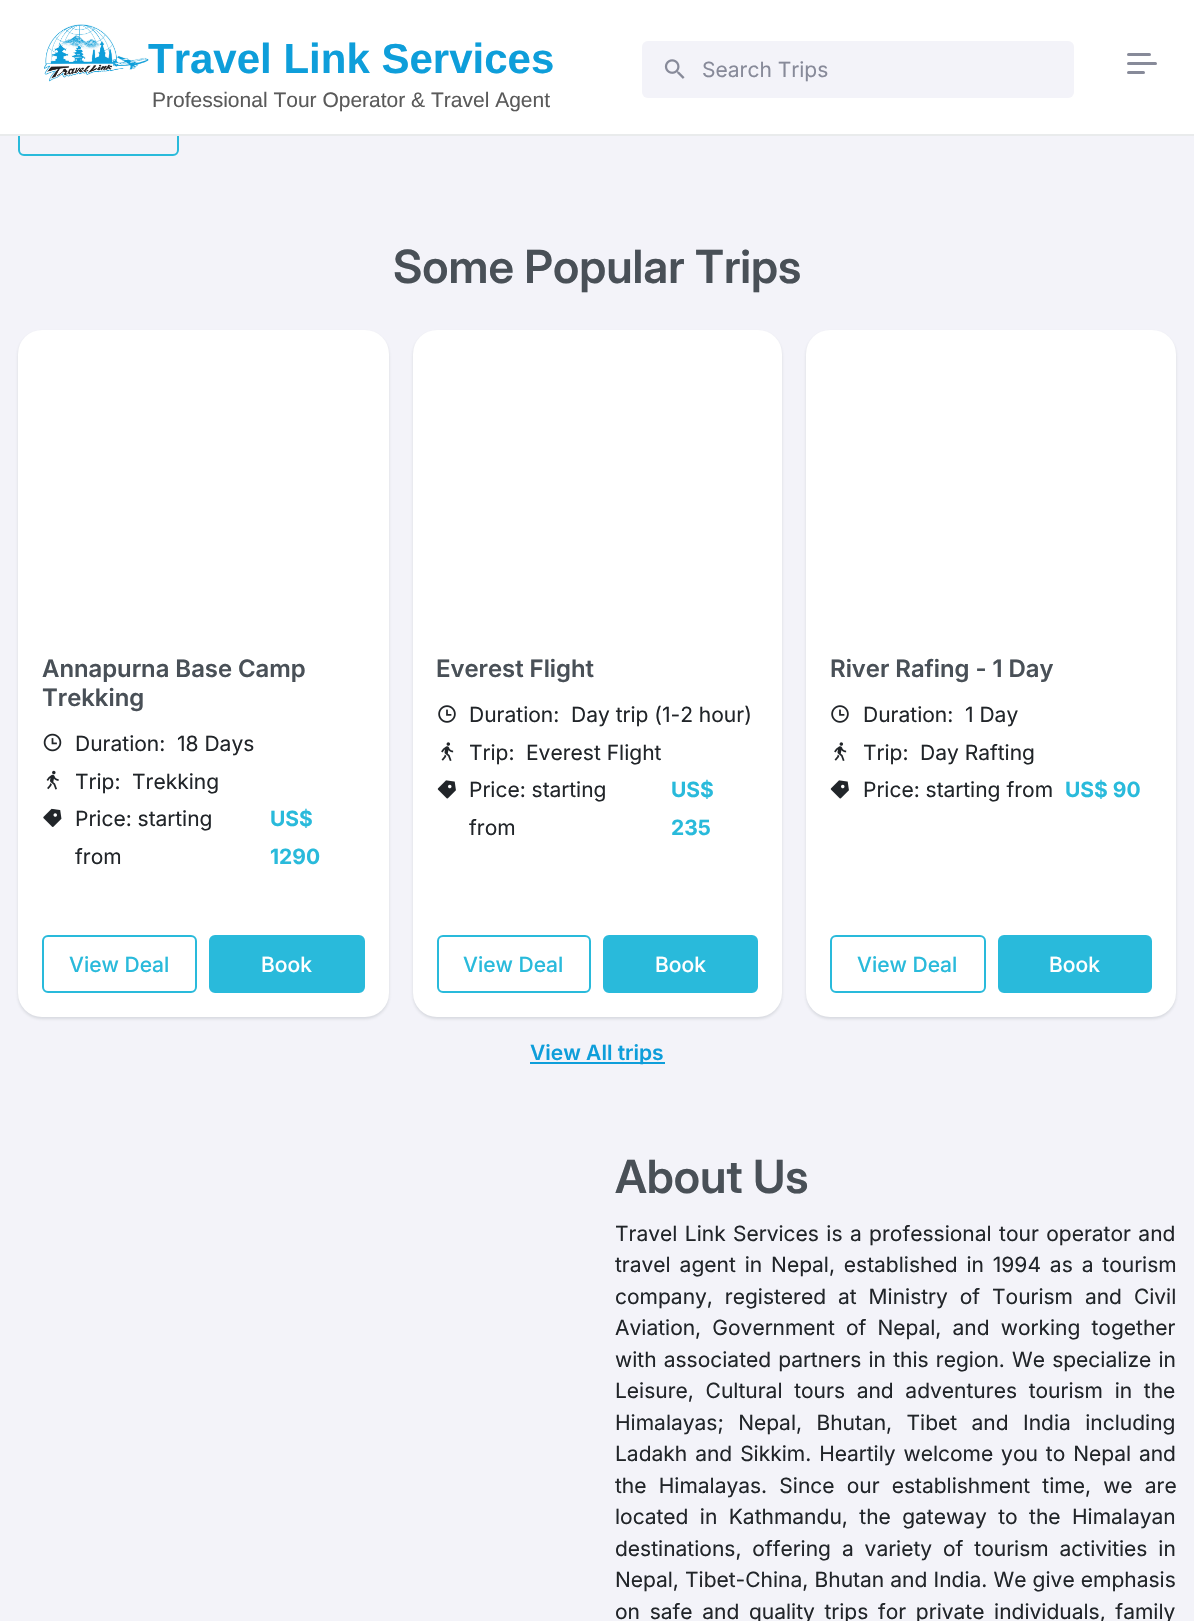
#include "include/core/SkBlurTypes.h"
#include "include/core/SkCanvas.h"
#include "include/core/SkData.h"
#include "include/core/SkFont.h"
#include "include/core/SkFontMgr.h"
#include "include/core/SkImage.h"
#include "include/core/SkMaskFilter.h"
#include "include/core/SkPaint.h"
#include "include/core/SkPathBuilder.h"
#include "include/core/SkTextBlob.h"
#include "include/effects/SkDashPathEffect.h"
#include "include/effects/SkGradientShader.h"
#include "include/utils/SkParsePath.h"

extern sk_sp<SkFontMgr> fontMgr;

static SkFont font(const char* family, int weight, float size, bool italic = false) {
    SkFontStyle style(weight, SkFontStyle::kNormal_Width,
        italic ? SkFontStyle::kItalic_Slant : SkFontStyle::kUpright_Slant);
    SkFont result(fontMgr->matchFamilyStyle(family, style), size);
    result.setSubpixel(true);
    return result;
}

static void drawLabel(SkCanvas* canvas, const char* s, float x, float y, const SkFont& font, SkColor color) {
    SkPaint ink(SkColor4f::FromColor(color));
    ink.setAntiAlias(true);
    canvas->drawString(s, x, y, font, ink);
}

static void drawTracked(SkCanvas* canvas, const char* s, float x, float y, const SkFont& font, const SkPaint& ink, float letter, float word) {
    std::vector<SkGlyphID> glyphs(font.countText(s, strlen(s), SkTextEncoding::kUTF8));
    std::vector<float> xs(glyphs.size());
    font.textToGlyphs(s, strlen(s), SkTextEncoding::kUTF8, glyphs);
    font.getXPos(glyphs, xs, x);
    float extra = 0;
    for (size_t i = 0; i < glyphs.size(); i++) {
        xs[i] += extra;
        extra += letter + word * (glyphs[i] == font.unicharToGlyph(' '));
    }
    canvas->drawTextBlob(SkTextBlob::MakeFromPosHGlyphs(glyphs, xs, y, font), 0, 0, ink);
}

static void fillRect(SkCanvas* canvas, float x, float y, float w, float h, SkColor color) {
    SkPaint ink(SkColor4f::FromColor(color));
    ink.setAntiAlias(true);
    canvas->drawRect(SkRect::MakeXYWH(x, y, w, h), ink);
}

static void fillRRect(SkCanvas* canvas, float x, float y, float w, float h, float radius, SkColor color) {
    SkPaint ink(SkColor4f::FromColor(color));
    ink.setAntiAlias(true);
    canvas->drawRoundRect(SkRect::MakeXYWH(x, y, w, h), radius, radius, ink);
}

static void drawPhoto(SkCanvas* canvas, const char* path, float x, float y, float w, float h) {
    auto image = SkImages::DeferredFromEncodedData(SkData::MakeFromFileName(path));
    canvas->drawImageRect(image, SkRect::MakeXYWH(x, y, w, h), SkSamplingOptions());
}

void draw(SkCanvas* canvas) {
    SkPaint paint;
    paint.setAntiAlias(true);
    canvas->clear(0xFFF3F3F9);
    paint.setStroke(true);
    paint.setStrokeWidth(2);
    paint.setColor(0xFF29BADB);
    canvas->drawRoundRect(SkRect::MakeXYWH(19, 99, 159, 56), 5, 5, paint);
    fillRect(canvas, 0, 0, 1194, 134, 0xFFFFFFFF);
    fillRect(canvas, 0, 134, 1194, 2, 0xFFE9EBEC);
    drawPhoto(canvas, "assets/img1.png", 44, 24, 105, 58);
    SkFont font1 = font("Liberation Sans", 700, 42);
    drawLabel(canvas, "Travel Link Services", 148, 73, font1, 0xFF0E9EDA);
    SkFont font2 = font("Liberation Sans", 400, 21);
    drawLabel(canvas, "Professional Tour Operator & Travel Agent", 152, 107, font2, 0xFF5A5A5A);
    fillRRect(canvas, 642, 41, 432, 57, 6, 0xFFF3F3F9);
    drawPhoto(canvas, "assets/img2.png", 664, 59, 21, 20);
    SkFont font3 = font("Inter", 400, 21);
    drawLabel(canvas, "Search Trips", 702, 77, font3, 0xFF878A99);
    fillRRect(canvas, 1127, 53, 24, 3, 1.5f, 0xFF878A99);
    fillRRect(canvas, 1127, 62, 30, 3, 1.5f, 0xFF878A99);
    fillRRect(canvas, 1127, 71, 18, 3, 1.5f, 0xFF878A99);
    SkFont font4 = font("Inter", 600, 45.75f);
    drawLabel(canvas, "Some Popular Trips", 393, 283, font4, 0xFF495057);
    paint.setStroke(false);
    paint.setColor(0x2638414A);
    paint.setMaskFilter(SkMaskFilter::MakeBlur(kNormal_SkBlurStyle, 1.5f));
    canvas->drawRoundRect(SkRect::MakeXYWH(18, 332, 371, 687), 24, 24, paint);
    paint.setMaskFilter(nullptr);
    fillRRect(canvas, 18, 330, 371, 687, 24, 0xFFFFFFFF);
    SkFont font5 = font("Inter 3", 600, 24);
    drawLabel(canvas, "Annapurna Base Camp", 42, 677, font5, 0xFF495057);
    drawLabel(canvas, "Trekking", 42, 706, font5, 0xFF495057);
    drawPhoto(canvas, "assets/img3.png", 43, 733, 19, 19);
    drawLabel(canvas, "Duration:", 75, 751, font3, 0xFF212529);
    drawLabel(canvas, "18 Days", 177, 751, font3, 0xFF212529);
    drawPhoto(canvas, "assets/img4.png", 46, 770, 13, 20);
    drawLabel(canvas, "Trip:", 75, 789, font3, 0xFF212529);
    drawLabel(canvas, "Trekking", 132, 789, font3, 0xFF212529);
    drawPhoto(canvas, "assets/img5.png", 43, 808, 19, 19);
    drawLabel(canvas, "Price: starting", 75, 826, font3, 0xFF212529);
    SkFont font6 = font("Inter", 700, 21);
    drawLabel(canvas, "US$", 270, 826, font6, 0xFF29BADB);
    drawLabel(canvas, "1290", 270, 864, font6, 0xFF29BADB);
    drawLabel(canvas, "from", 75, 864, font3, 0xFF212529);
    paint.setStroke(true);
    paint.setColor(0xFF29BADB);
    canvas->drawRoundRect(SkRect::MakeXYWH(43, 936, 153, 56), 5, 5, paint);
    SkFont font7 = font("Inter", 500, 21);
    drawLabel(canvas, "View Deal", 69, 972, font7, 0xFF29BADB);
    paint.setStroke(false);
    canvas->drawRoundRect(SkRect::MakeXYWH(210, 936, 154, 56), 5, 5, paint);
    paint.setStroke(true);
    canvas->drawRoundRect(SkRect::MakeXYWH(210, 936, 154, 56), 5, 5, paint);
    drawLabel(canvas, "Book", 261, 972, font7, 0xFFFFFFFF);
    paint.setStroke(false);
    paint.setColor(0x2638414A);
    paint.setMaskFilter(SkMaskFilter::MakeBlur(kNormal_SkBlurStyle, 1.5f));
    canvas->drawRoundRect(SkRect::MakeXYWH(413, 332, 369, 687), 24, 24, paint);
    paint.setMaskFilter(nullptr);
    fillRRect(canvas, 413, 330, 369, 687, 24, 0xFFFFFFFF);
    drawLabel(canvas, "Everest Flight", 436, 677, font5, 0xFF495057);
    drawPhoto(canvas, "assets/img6.png", 438, 705, 18, 18);
    drawLabel(canvas, "Duration:", 469, 722, font3, 0xFF212529);
    drawLabel(canvas, "Day trip (1-2 hour)", 571, 722, font3, 0xFF212529);
    drawPhoto(canvas, "assets/img7.png", 441, 742, 13, 19);
    drawLabel(canvas, "Trip:", 469, 760, font3, 0xFF212529);
    drawLabel(canvas, "Everest Flight", 526, 760, font3, 0xFF212529);
    drawPhoto(canvas, "assets/img8.png", 437, 780, 19, 19);
    drawLabel(canvas, "Price: starting", 469, 797, font3, 0xFF212529);
    drawLabel(canvas, "US$", 671, 797, font6, 0xFF29BADB);
    drawLabel(canvas, "235", 671, 835, font6, 0xFF29BADB);
    drawLabel(canvas, "from", 469, 835, font3, 0xFF212529);
    paint.setStroke(true);
    paint.setColor(0xFF29BADB);
    canvas->drawRoundRect(SkRect::MakeXYWH(438, 936, 152, 56), 5, 5, paint);
    drawLabel(canvas, "View Deal", 463, 972, font7, 0xFF29BADB);
    paint.setStroke(false);
    canvas->drawRoundRect(SkRect::MakeXYWH(604, 936, 153, 56), 5, 5, paint);
    paint.setStroke(true);
    canvas->drawRoundRect(SkRect::MakeXYWH(604, 936, 153, 56), 5, 5, paint);
    drawLabel(canvas, "Book", 655, 972, font7, 0xFFFFFFFF);
    paint.setStroke(false);
    paint.setColor(0x2638414A);
    paint.setMaskFilter(SkMaskFilter::MakeBlur(kNormal_SkBlurStyle, 1.5f));
    canvas->drawRoundRect(SkRect::MakeXYWH(806, 332, 370, 687), 24, 24, paint);
    paint.setMaskFilter(nullptr);
    fillRRect(canvas, 806, 330, 370, 687, 24, 0xFFFFFFFF);
    drawLabel(canvas, "River Rafing - 1 Day", 830, 677, font5, 0xFF495057);
    drawPhoto(canvas, "assets/img6.png", 831, 705, 18, 18);
    drawLabel(canvas, "Duration:", 863, 722, font3, 0xFF212529);
    drawLabel(canvas, "1 Day", 965, 722, font3, 0xFF212529);
    drawPhoto(canvas, "assets/img7.png", 834, 742, 13, 19);
    drawLabel(canvas, "Trip:", 863, 760, font3, 0xFF212529);
    drawLabel(canvas, "Day Rafting", 920, 760, font3, 0xFF212529);
    drawPhoto(canvas, "assets/img8.png", 830, 780, 19, 19);
    drawLabel(canvas, "Price: starting from", 863, 797, font3, 0xFF212529);
    drawLabel(canvas, "US$ 90", 1065, 797, font6, 0xFF29BADB);
    paint.setStroke(true);
    paint.setColor(0xFF29BADB);
    canvas->drawRoundRect(SkRect::MakeXYWH(831, 936, 154, 56), 5, 5, paint);
    drawLabel(canvas, "View Deal", 857, 972, font7, 0xFF29BADB);
    paint.setStroke(false);
    canvas->drawRoundRect(SkRect::MakeXYWH(999, 936, 152, 56), 5, 5, paint);
    paint.setStroke(true);
    canvas->drawRoundRect(SkRect::MakeXYWH(999, 936, 152, 56), 5, 5, paint);
    drawLabel(canvas, "Book", 1049, 972, font7, 0xFFFFFFFF);
    fillRect(canvas, 530, 1062, 135, 2, 0xFF0E9EDA);
    SkFont font8 = font("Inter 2", 600, 21);
    drawLabel(canvas, "View All trips", 530, 1060, font8, 0xFF0E9EDA);
    drawLabel(canvas, "About Us", 615, 1193, font4, 0xFF495057);
    paint.setStroke(false);
    paint.setColor(0xFF212529);
    drawTracked(canvas, "Travel Link Services is a professional tour operator and", 615, 1241, font3, paint, 0, 1.5f);
    drawTracked(canvas, "travel agent in Nepal, established in 1994 as a tourism", 615, 1272, font3, paint, 0, 3);
    drawTracked(canvas, "company, registered at Ministry of Tourism and Civil", 615, 1304, font3, paint, 0, 6);
    drawTracked(canvas, "Aviation, Government of Nepal, and working together", 615, 1335, font3, paint, 0, 5.25f);
    drawTracked(canvas, "with associated partners in this region. We specialize in", 615, 1367, font3, paint, 0, 1.25f);
    drawTracked(canvas, "Leisure, Cultural tours and adventures tourism in the", 615, 1398, font3, paint, 0, 5.75f);
    drawTracked(canvas, "Himalayas; Nepal, Bhutan, Tibet and India including", 615, 1430, font3, paint, 0, 8.5f);
    drawTracked(canvas, "Ladakh and Sikkim. Heartily welcome you to Nepal and", 615, 1461, font3, paint, 0, 2);
    drawTracked(canvas, "the Himalayas. Since our establishment time, we are", 615, 1493, font3, paint, 0, 6.25f);
    drawTracked(canvas, "located in Kathmandu, the gateway to the Himalayan", 615, 1524, font3, paint, 0, 5.5f);
    drawTracked(canvas, "destinations, offering a variety of tourism activities in", 615, 1556, font3, paint, 0, 5);
    drawTracked(canvas, "Nepal, Tibet-China, Bhutan and India. We give emphasis", 615, 1587, font3, paint, 0, 0.25f);
    drawTracked(canvas, "on safe and quality trips for private individuals, family", 615, 1619, font3, paint, 0, 3.75f);
}
